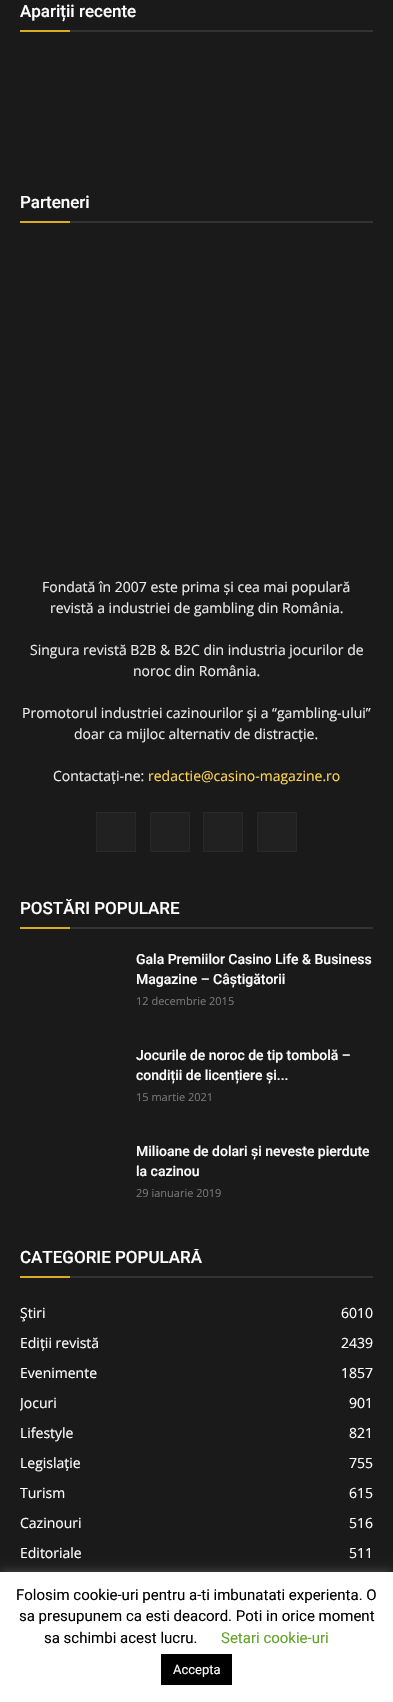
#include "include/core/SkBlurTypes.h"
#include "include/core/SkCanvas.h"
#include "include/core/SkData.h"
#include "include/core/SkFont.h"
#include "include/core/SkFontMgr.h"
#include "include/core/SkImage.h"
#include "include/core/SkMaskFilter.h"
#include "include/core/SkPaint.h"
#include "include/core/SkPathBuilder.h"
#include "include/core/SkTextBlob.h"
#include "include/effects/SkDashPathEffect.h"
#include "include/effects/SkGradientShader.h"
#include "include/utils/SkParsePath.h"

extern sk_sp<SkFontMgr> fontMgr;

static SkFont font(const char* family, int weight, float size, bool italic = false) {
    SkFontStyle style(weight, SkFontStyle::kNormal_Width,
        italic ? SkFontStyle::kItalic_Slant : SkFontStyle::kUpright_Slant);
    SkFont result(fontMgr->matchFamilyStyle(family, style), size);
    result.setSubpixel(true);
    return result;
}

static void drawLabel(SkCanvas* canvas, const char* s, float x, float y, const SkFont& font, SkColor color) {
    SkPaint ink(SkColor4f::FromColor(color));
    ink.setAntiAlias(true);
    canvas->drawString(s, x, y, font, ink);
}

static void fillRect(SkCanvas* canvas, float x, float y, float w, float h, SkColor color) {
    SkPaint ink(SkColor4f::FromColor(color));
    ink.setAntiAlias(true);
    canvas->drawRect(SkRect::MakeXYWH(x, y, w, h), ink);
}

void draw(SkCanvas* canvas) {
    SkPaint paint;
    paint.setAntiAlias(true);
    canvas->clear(0xFF1A1A1A);
    SkFont font1 = font("Roboto", 500, 17);
    drawLabel(canvas, "Apariții recente", 20, 17, font1, 0xFFFFFFFF);
    fillRect(canvas, 20, 30, 50, 2, 0xFFDAAC22);
    fillRect(canvas, 70, 30, 303, 2, 0xFF333333);
    drawLabel(canvas, "Parteneri", 20, 208, font1, 0xFFFFFFFF);
    fillRect(canvas, 20, 221, 50, 2, 0xFFDAAC22);
    fillRect(canvas, 70, 221, 303, 2, 0xFF333333);
    SkFont font2 = font("Open Sans", 400, 14);
    drawLabel(canvas, "Fondată în 2007 este prima și cea mai populară", 42, 592, font2, 0xFFEAEAEA);
    drawLabel(canvas, "revistă a industriei de gambling din România.", 50, 613, font2, 0xFFEAEAEA);
    drawLabel(canvas, "Singura revistă B2B & B2C din industria jocurilor de", 30, 655, font2, 0xFFEAEAEA);
    drawLabel(canvas, "noroc din România.", 133, 676, font2, 0xFFEAEAEA);
    drawLabel(canvas, "Promotorul industriei cazinourilor şi a “gambling-ului”", 22, 718, font2, 0xFFEAEAEA);
    drawLabel(canvas, "doar ca mijloc alternativ de distracție.", 74, 739, font2, 0xFFEAEAEA);
    drawLabel(canvas, "Contactați-ne:", 53, 781, font2, 0xFFEAEAEA);
    drawLabel(canvas, "redactie@casino-magazine.ro", 148, 781, font2, 0xFFFFD653);
    paint.setColor(0xFF212121);
    canvas->drawRect(SkRect::MakeXYWH(96.5f, 812.5f, 39, 39), paint);
    paint.setStroke(true);
    paint.setStrokeWidth(1);
    paint.setColor(0xFF282828);
    canvas->drawRect(SkRect::MakeXYWH(96.5f, 812.5f, 39, 39), paint);
    paint.setStroke(false);
    paint.setColor(0xFF212121);
    canvas->drawRect(SkRect::MakeXYWH(150.5f, 812.5f, 39, 39), paint);
    paint.setStroke(true);
    paint.setColor(0xFF282828);
    canvas->drawRect(SkRect::MakeXYWH(150.5f, 812.5f, 39, 39), paint);
    paint.setStroke(false);
    paint.setColor(0xFF212121);
    canvas->drawRect(SkRect::MakeXYWH(203.5f, 812.5f, 39, 39), paint);
    paint.setStroke(true);
    paint.setColor(0xFF282828);
    canvas->drawRect(SkRect::MakeXYWH(203.5f, 812.5f, 39, 39), paint);
    paint.setStroke(false);
    paint.setColor(0xFF212121);
    canvas->drawRect(SkRect::MakeXYWH(257.5f, 812.5f, 39, 39), paint);
    paint.setStroke(true);
    paint.setColor(0xFF282828);
    canvas->drawRect(SkRect::MakeXYWH(257.5f, 812.5f, 39, 39), paint);
    drawLabel(canvas, "POSTĂRI POPULARE", 20, 914, font1, 0xFFFFFFFF);
    fillRect(canvas, 20, 927, 50, 2, 0xFFDAAC22);
    fillRect(canvas, 70, 927, 303, 2, 0xFF333333);
    SkFont font3 = font("Roboto", 500, 14);
    drawLabel(canvas, "Gala Premiilor Casino Life & Business", 136, 964, font3, 0xFFFFFFFF);
    drawLabel(canvas, "Magazine – Câștigătorii", 136, 984, font3, 0xFFFFFFFF);
    SkFont font4 = font("Open Sans", 400, 11);
    drawLabel(canvas, "12 decembrie 2015", 136, 1005, font4, 0xFF767676);
    drawLabel(canvas, "Jocurile de noroc de tip tombolă –", 136, 1060, font3, 0xFFFFFFFF);
    drawLabel(canvas, "condiții de licențiere și...", 136, 1080, font3, 0xFFFFFFFF);
    drawLabel(canvas, "15 martie 2021", 136, 1101, font4, 0xFF767676);
    drawLabel(canvas, "Milioane de dolari și neveste pierdute", 136, 1156, font3, 0xFFFFFFFF);
    drawLabel(canvas, "la cazinou", 136, 1176, font3, 0xFFFFFFFF);
    drawLabel(canvas, "29 ianuarie 2019", 136, 1197, font4, 0xFF767676);
    canvas->save();
    canvas->clipRect(SkRect::MakeXYWH(20, 1249, 353, 319));
    drawLabel(canvas, "CATEGORIE POPULARĂ", 20, 1263, font1, 0xFFFFFFFF);
    canvas->restore();
    fillRect(canvas, 20, 1276, 50, 2, 0xFFDAAC22);
    fillRect(canvas, 70, 1276, 303, 2, 0xFF333333);
    drawLabel(canvas, "Ştiri", 20, 1318, font2, 0xFFFFFFFF);
    drawLabel(canvas, "6010", 341, 1318, font2, 0xFFFFFFFF);
    drawLabel(canvas, "Ediții revistă", 20, 1348, font2, 0xFFFFFFFF);
    drawLabel(canvas, "2439", 341, 1348, font2, 0xFFFFFFFF);
    drawLabel(canvas, "Evenimente", 20, 1378, font2, 0xFFFFFFFF);
    drawLabel(canvas, "1857", 341, 1378, font2, 0xFFFFFFFF);
    canvas->save();
    canvas->clipRect(SkRect::MakeXYWH(20, 1249, 353, 319));
    drawLabel(canvas, "Jocuri", 20, 1408, font2, 0xFFFFFFFF);
    canvas->restore();
    drawLabel(canvas, "901", 349, 1408, font2, 0xFFFFFFFF);
    drawLabel(canvas, "Lifestyle", 20, 1438, font2, 0xFFFFFFFF);
    drawLabel(canvas, "821", 349, 1438, font2, 0xFFFFFFFF);
    drawLabel(canvas, "Legislație", 20, 1468, font2, 0xFFFFFFFF);
    drawLabel(canvas, "755", 349, 1468, font2, 0xFFFFFFFF);
    drawLabel(canvas, "Turism", 20, 1498, font2, 0xFFFFFFFF);
    drawLabel(canvas, "615", 349, 1498, font2, 0xFFFFFFFF);
    drawLabel(canvas, "Cazinouri", 20, 1528, font2, 0xFFFFFFFF);
    drawLabel(canvas, "516", 349, 1528, font2, 0xFFFFFFFF);
    drawLabel(canvas, "Editoriale", 20, 1558, font2, 0xFFFFFFFF);
    drawLabel(canvas, "511", 349, 1558, font2, 0xFFFFFFFF);
    paint.setStroke(false);
    paint.setColor(0x4DACABAB);
    paint.setMaskFilter(SkMaskFilter::MakeBlur(kNormal_SkBlurStyle, 5));
    canvas->drawRect(SkRect::MakeXYWH(0, 1571, 393, 130), paint);
    paint.setMaskFilter(nullptr);
    fillRect(canvas, 0, 1572, 393, 130, 0xFFFFFFFF);
    SkFont font5 = font("Roboto", 400, 15);
    drawLabel(canvas, "Folosim cookie-uri pentru a-ti imbunatati experienta. O", 16, 1600, font5, 0xFF000000);
    drawLabel(canvas, "sa presupunem ca esti deacord. Poti in orice moment", 19, 1621, font5, 0xFF000000);
    drawLabel(canvas, "sa schimbi acest lucru.", 44, 1643, font5, 0xFF000000);
    drawLabel(canvas, "Setari cookie-uri", 221, 1643, font5, 0xFF62A329);
    fillRect(canvas, 161, 1654, 71, 31, 0xFF000000);
    SkFont font6 = font("Roboto", 400, 13);
    drawLabel(canvas, "Accepta", 173, 1674, font6, 0xFFFFFFFF);
}
